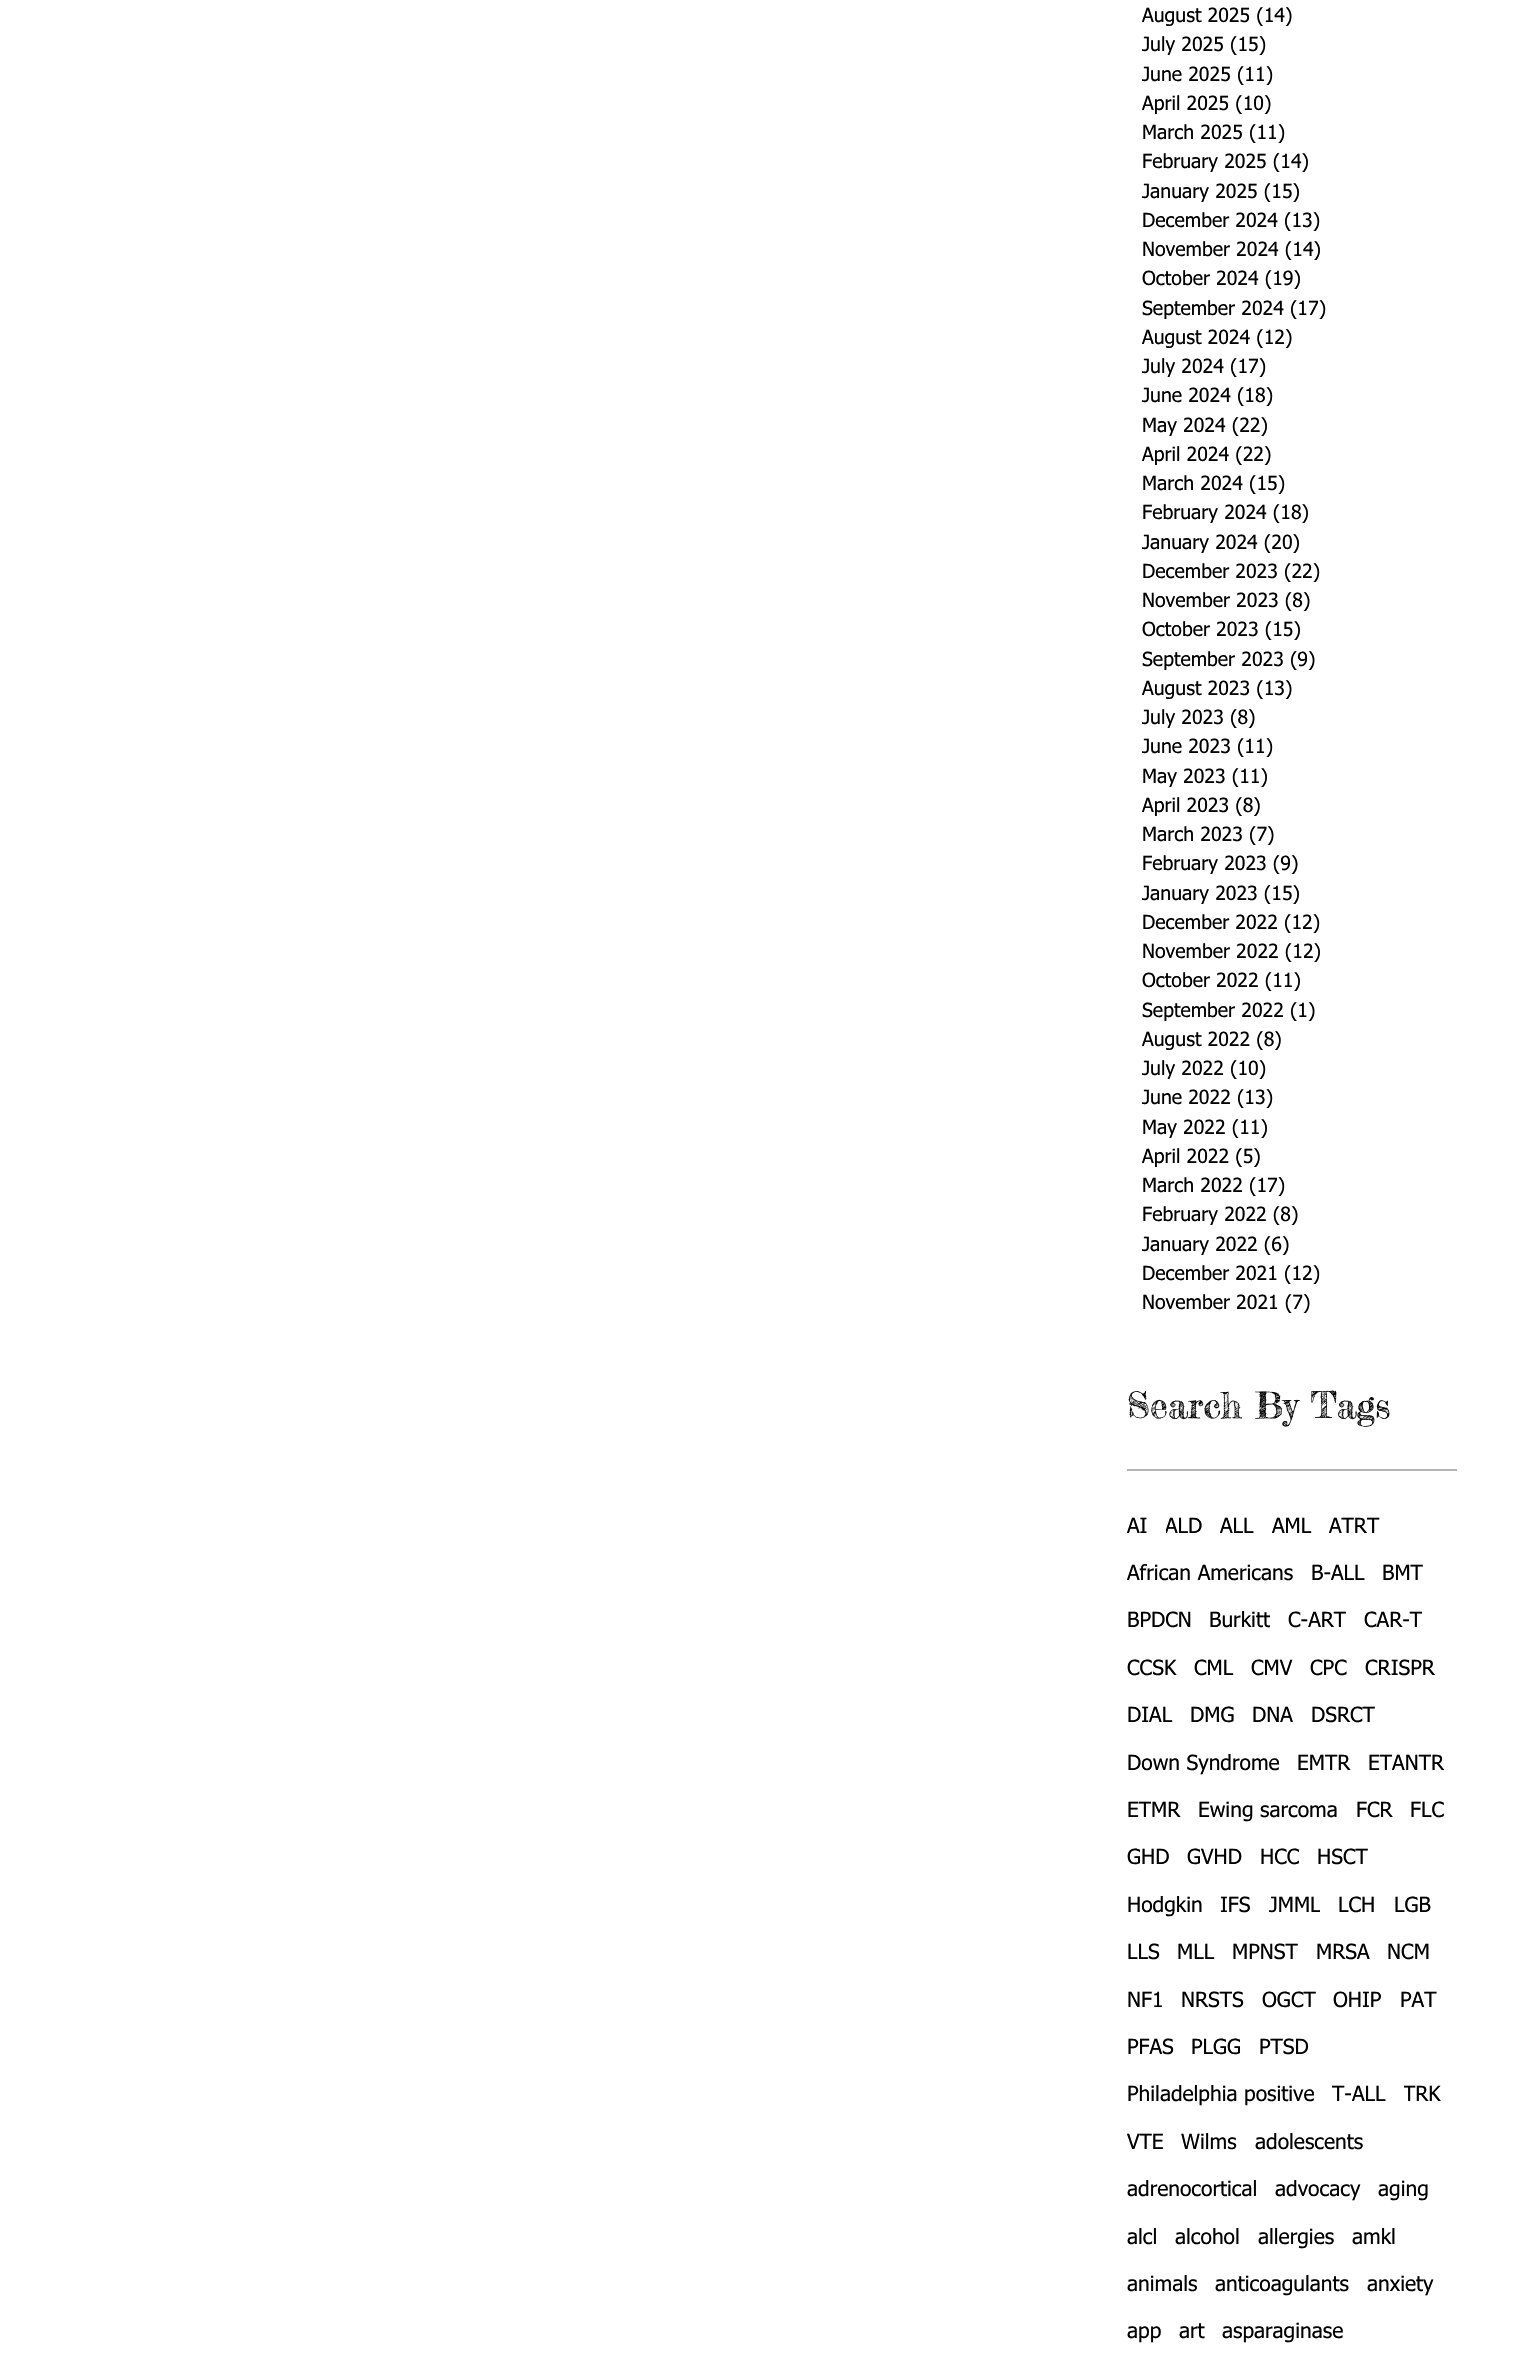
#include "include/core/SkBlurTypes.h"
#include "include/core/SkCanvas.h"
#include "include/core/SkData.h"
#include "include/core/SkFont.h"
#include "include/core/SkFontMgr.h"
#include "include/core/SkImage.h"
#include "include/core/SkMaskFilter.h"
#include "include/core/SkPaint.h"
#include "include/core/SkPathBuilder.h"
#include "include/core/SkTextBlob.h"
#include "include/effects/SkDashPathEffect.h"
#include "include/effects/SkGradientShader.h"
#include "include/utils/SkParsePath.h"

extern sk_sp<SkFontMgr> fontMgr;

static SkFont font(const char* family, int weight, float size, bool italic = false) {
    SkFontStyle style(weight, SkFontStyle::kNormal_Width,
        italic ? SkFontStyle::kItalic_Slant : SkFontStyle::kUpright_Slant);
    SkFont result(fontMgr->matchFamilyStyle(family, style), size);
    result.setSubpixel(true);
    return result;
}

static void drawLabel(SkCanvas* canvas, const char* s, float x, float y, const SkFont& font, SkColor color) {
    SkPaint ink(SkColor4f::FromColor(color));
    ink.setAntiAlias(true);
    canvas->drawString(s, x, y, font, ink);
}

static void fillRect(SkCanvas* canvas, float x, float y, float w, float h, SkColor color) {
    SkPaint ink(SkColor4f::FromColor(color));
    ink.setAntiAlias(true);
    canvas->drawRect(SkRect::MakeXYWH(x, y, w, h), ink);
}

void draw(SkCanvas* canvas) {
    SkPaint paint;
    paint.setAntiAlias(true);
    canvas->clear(0xFFFFFFFF);
    SkFont font1 = font("tahoma", 400, 19.5f);
    drawLabel(canvas, "August 2025 (14)", 1142, 22, font1, 0xFF000000);
    drawLabel(canvas, "July 2025 (15)", 1142, 51, font1, 0xFF000000);
    drawLabel(canvas, "June 2025 (11)", 1142, 81, font1, 0xFF000000);
    drawLabel(canvas, "April 2025 (10)", 1142, 110, font1, 0xFF000000);
    drawLabel(canvas, "March 2025 (11)", 1142, 139, font1, 0xFF000000);
    drawLabel(canvas, "February 2025 (14)", 1142, 168, font1, 0xFF000000);
    drawLabel(canvas, "January 2025 (15)", 1142, 198, font1, 0xFF000000);
    drawLabel(canvas, "December 2024 (13)", 1142, 227, font1, 0xFF000000);
    drawLabel(canvas, "November 2024 (14)", 1142, 256, font1, 0xFF000000);
    drawLabel(canvas, "October 2024 (19)", 1142, 285, font1, 0xFF000000);
    drawLabel(canvas, "September 2024 (17)", 1142, 315, font1, 0xFF000000);
    drawLabel(canvas, "August 2024 (12)", 1142, 344, font1, 0xFF000000);
    drawLabel(canvas, "July 2024 (17)", 1142, 373, font1, 0xFF000000);
    drawLabel(canvas, "June 2024 (18)", 1142, 402, font1, 0xFF000000);
    drawLabel(canvas, "May 2024 (22)", 1142, 432, font1, 0xFF000000);
    drawLabel(canvas, "April 2024 (22)", 1142, 461, font1, 0xFF000000);
    drawLabel(canvas, "March 2024 (15)", 1142, 490, font1, 0xFF000000);
    drawLabel(canvas, "February 2024 (18)", 1142, 519, font1, 0xFF000000);
    drawLabel(canvas, "January 2024 (20)", 1142, 549, font1, 0xFF000000);
    drawLabel(canvas, "December 2023 (22)", 1142, 578, font1, 0xFF000000);
    drawLabel(canvas, "November 2023 (8)", 1142, 607, font1, 0xFF000000);
    drawLabel(canvas, "October 2023 (15)", 1142, 636, font1, 0xFF000000);
    drawLabel(canvas, "September 2023 (9)", 1142, 666, font1, 0xFF000000);
    drawLabel(canvas, "August 2023 (13)", 1142, 695, font1, 0xFF000000);
    drawLabel(canvas, "July 2023 (8)", 1142, 724, font1, 0xFF000000);
    drawLabel(canvas, "June 2023 (11)", 1142, 753, font1, 0xFF000000);
    drawLabel(canvas, "May 2023 (11)", 1142, 783, font1, 0xFF000000);
    drawLabel(canvas, "April 2023 (8)", 1142, 812, font1, 0xFF000000);
    drawLabel(canvas, "March 2023 (7)", 1142, 841, font1, 0xFF000000);
    drawLabel(canvas, "February 2023 (9)", 1142, 870, font1, 0xFF000000);
    drawLabel(canvas, "January 2023 (15)", 1142, 900, font1, 0xFF000000);
    drawLabel(canvas, "December 2022 (12)", 1142, 929, font1, 0xFF000000);
    drawLabel(canvas, "November 2022 (12)", 1142, 958, font1, 0xFF000000);
    drawLabel(canvas, "October 2022 (11)", 1142, 987, font1, 0xFF000000);
    drawLabel(canvas, "September 2022 (1)", 1142, 1017, font1, 0xFF000000);
    drawLabel(canvas, "August 2022 (8)", 1142, 1046, font1, 0xFF000000);
    drawLabel(canvas, "July 2022 (10)", 1142, 1075, font1, 0xFF000000);
    drawLabel(canvas, "June 2022 (13)", 1142, 1104, font1, 0xFF000000);
    drawLabel(canvas, "May 2022 (11)", 1142, 1134, font1, 0xFF000000);
    drawLabel(canvas, "April 2022 (5)", 1142, 1163, font1, 0xFF000000);
    drawLabel(canvas, "March 2022 (17)", 1142, 1192, font1, 0xFF000000);
    drawLabel(canvas, "February 2022 (8)", 1142, 1221, font1, 0xFF000000);
    drawLabel(canvas, "January 2022 (6)", 1142, 1251, font1, 0xFF000000);
    drawLabel(canvas, "December 2021 (12)", 1142, 1280, font1, 0xFF000000);
    drawLabel(canvas, "November 2021 (7)", 1142, 1309, font1, 0xFF000000);
    SkFont font2 = font("Fredericka the Great", 400, 36);
    drawLabel(canvas, "Search By Tags", 1127, 1418, font2, 0xFF000000);
    fillRect(canvas, 1127, 1469, 330, 2, 0xFFB3B3B3);
    SkFont font3 = font("tahoma", 400, 21);
    drawLabel(canvas, "AI", 1127, 1533, font3, 0xFF000000);
    canvas->save();
    canvas->clipRect(SkRect::MakeXYWH(1166, 1514, 36, 28));
    drawLabel(canvas, "ALD", 1165, 1533, font3, 0xFF000000);
    canvas->restore();
    drawLabel(canvas, "ALL", 1220, 1533, font3, 0xFF000000);
    drawLabel(canvas, "AML", 1272, 1533, font3, 0xFF000000);
    drawLabel(canvas, "ATRT", 1329, 1533, font3, 0xFF000000);
    drawLabel(canvas, "African Americans", 1127, 1580, font3, 0xFF000000);
    drawLabel(canvas, "B-ALL", 1311, 1580, font3, 0xFF000000);
    drawLabel(canvas, "BMT", 1382, 1580, font3, 0xFF000000);
    drawLabel(canvas, "BPDCN", 1127, 1627, font3, 0xFF000000);
    drawLabel(canvas, "Burkitt", 1209, 1627, font3, 0xFF000000);
    drawLabel(canvas, "C-ART", 1288, 1627, font3, 0xFF000000);
    drawLabel(canvas, "CAR-T", 1364, 1627, font3, 0xFF000000);
    drawLabel(canvas, "CCSK", 1127, 1675, font3, 0xFF000000);
    drawLabel(canvas, "CML", 1194, 1675, font3, 0xFF000000);
    drawLabel(canvas, "CMV", 1251, 1675, font3, 0xFF000000);
    drawLabel(canvas, "CPC", 1310, 1675, font3, 0xFF000000);
    drawLabel(canvas, "CRISPR", 1365, 1675, font3, 0xFF000000);
    drawLabel(canvas, "DIAL", 1127, 1722, font3, 0xFF000000);
    drawLabel(canvas, "DMG", 1190, 1722, font3, 0xFF000000);
    drawLabel(canvas, "DNA", 1252, 1722, font3, 0xFF000000);
    drawLabel(canvas, "DSRCT", 1311, 1722, font3, 0xFF000000);
    drawLabel(canvas, "Down Syndrome", 1127, 1770, font3, 0xFF000000);
    drawLabel(canvas, "EMTR", 1297, 1770, font3, 0xFF000000);
    drawLabel(canvas, "ETANTR", 1368, 1770, font3, 0xFF000000);
    drawLabel(canvas, "ETMR", 1127, 1817, font3, 0xFF000000);
    drawLabel(canvas, "Ewing sarcoma", 1198, 1817, font3, 0xFF000000);
    drawLabel(canvas, "FCR", 1356, 1817, font3, 0xFF000000);
    drawLabel(canvas, "FLC", 1410, 1817, font3, 0xFF000000);
    drawLabel(canvas, "GHD", 1127, 1864, font3, 0xFF000000);
    drawLabel(canvas, "GVHD", 1187, 1864, font3, 0xFF000000);
    drawLabel(canvas, "HCC", 1260, 1864, font3, 0xFF000000);
    drawLabel(canvas, "HSCT", 1317, 1864, font3, 0xFF000000);
    drawLabel(canvas, "Hodgkin", 1127, 1912, font3, 0xFF000000);
    drawLabel(canvas, "IFS", 1220, 1912, font3, 0xFF000000);
    canvas->save();
    canvas->clipRect(SkRect::MakeXYWH(1269, 1893, 51, 29));
    drawLabel(canvas, "JMML", 1269, 1912, font3, 0xFF000000);
    canvas->restore();
    drawLabel(canvas, "LCH", 1338, 1912, font3, 0xFF000000);
    drawLabel(canvas, "LGB", 1394, 1912, font3, 0xFF000000);
    drawLabel(canvas, "LLS", 1127, 1959, font3, 0xFF000000);
    drawLabel(canvas, "MLL", 1177, 1959, font3, 0xFF000000);
    drawLabel(canvas, "MPNST", 1232, 1959, font3, 0xFF000000);
    drawLabel(canvas, "MRSA", 1316, 1959, font3, 0xFF000000);
    drawLabel(canvas, "NCM", 1387, 1959, font3, 0xFF000000);
    drawLabel(canvas, "NF1", 1127, 2007, font3, 0xFF000000);
    drawLabel(canvas, "NRSTS", 1181, 2007, font3, 0xFF000000);
    drawLabel(canvas, "OGCT", 1262, 2007, font3, 0xFF000000);
    drawLabel(canvas, "OHIP", 1333, 2007, font3, 0xFF000000);
    drawLabel(canvas, "PAT", 1400, 2007, font3, 0xFF000000);
    drawLabel(canvas, "PFAS", 1127, 2054, font3, 0xFF000000);
    drawLabel(canvas, "PLGG", 1191, 2054, font3, 0xFF000000);
    drawLabel(canvas, "PTSD", 1259, 2054, font3, 0xFF000000);
    drawLabel(canvas, "Philadelphia positive", 1127, 2101, font3, 0xFF000000);
    drawLabel(canvas, "T-ALL", 1332, 2101, font3, 0xFF000000);
    canvas->save();
    canvas->clipRect(SkRect::MakeXYWH(1404, 2082, 38, 30));
    drawLabel(canvas, "TRK", 1403, 2101, font3, 0xFF000000);
    canvas->restore();
    drawLabel(canvas, "VTE", 1127, 2149, font3, 0xFF000000);
    drawLabel(canvas, "Wilms", 1181, 2149, font3, 0xFF000000);
    drawLabel(canvas, "adolescents", 1255, 2149, font3, 0xFF000000);
    drawLabel(canvas, "adrenocortical", 1127, 2196, font3, 0xFF000000);
    drawLabel(canvas, "advocacy", 1275, 2196, font3, 0xFF000000);
    drawLabel(canvas, "aging", 1378, 2196, font3, 0xFF000000);
    drawLabel(canvas, "alcl", 1127, 2244, font3, 0xFF000000);
    drawLabel(canvas, "alcohol", 1175, 2244, font3, 0xFF000000);
    drawLabel(canvas, "allergies", 1258, 2244, font3, 0xFF000000);
    drawLabel(canvas, "amkl", 1352, 2244, font3, 0xFF000000);
    drawLabel(canvas, "animals", 1127, 2291, font3, 0xFF000000);
    drawLabel(canvas, "anticoagulants", 1215, 2291, font3, 0xFF000000);
    drawLabel(canvas, "anxiety", 1367, 2291, font3, 0xFF000000);
    drawLabel(canvas, "app", 1127, 2338, font3, 0xFF000000);
    drawLabel(canvas, "art", 1179, 2338, font3, 0xFF000000);
    drawLabel(canvas, "asparaginase", 1222, 2338, font3, 0xFF000000);
}
